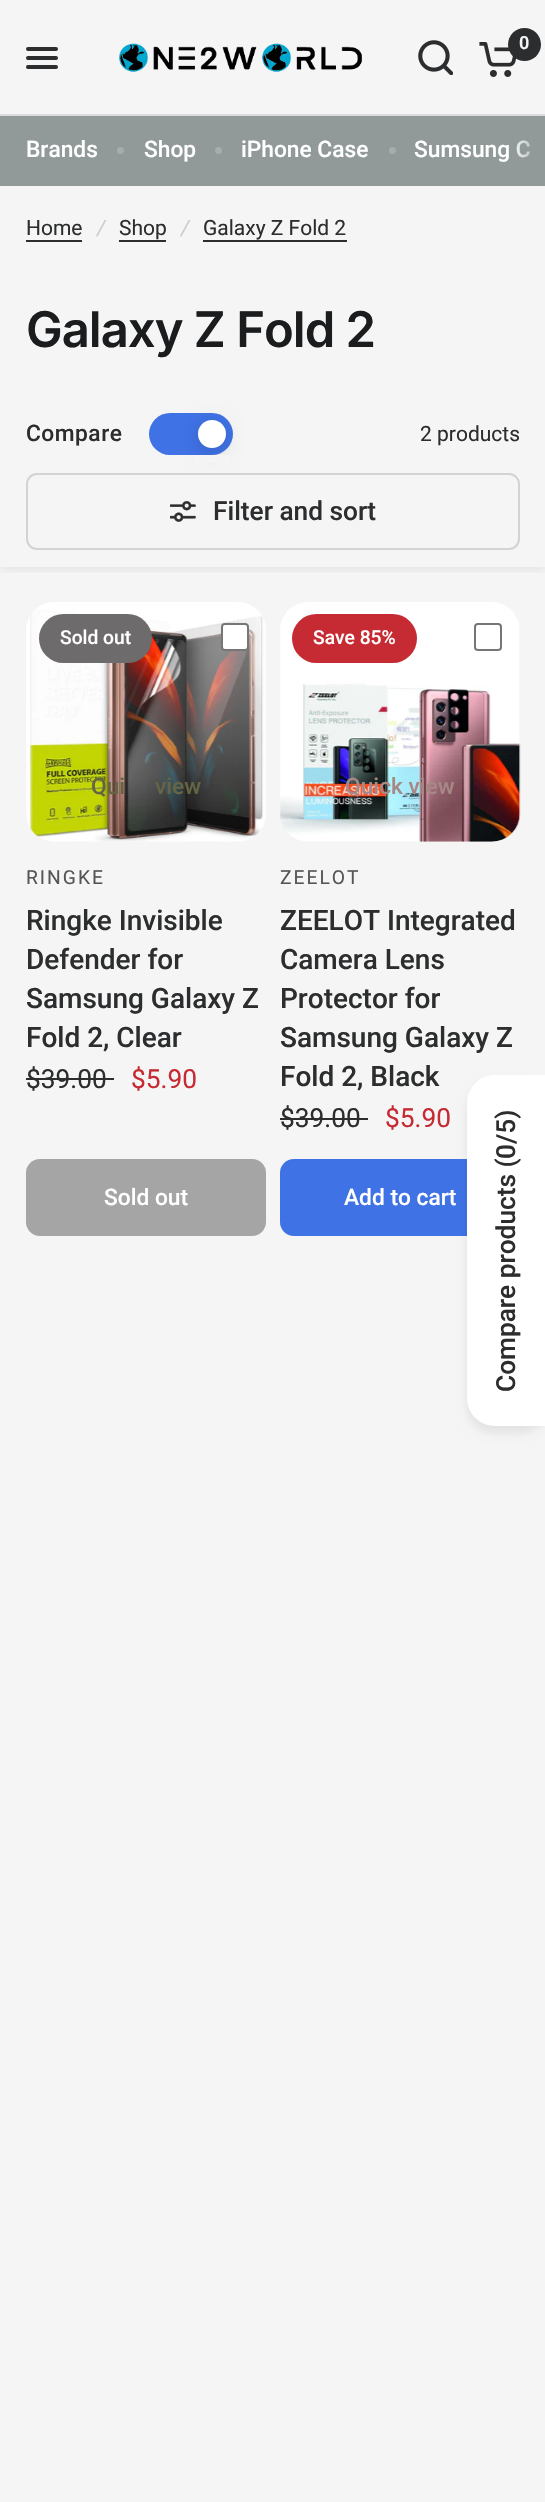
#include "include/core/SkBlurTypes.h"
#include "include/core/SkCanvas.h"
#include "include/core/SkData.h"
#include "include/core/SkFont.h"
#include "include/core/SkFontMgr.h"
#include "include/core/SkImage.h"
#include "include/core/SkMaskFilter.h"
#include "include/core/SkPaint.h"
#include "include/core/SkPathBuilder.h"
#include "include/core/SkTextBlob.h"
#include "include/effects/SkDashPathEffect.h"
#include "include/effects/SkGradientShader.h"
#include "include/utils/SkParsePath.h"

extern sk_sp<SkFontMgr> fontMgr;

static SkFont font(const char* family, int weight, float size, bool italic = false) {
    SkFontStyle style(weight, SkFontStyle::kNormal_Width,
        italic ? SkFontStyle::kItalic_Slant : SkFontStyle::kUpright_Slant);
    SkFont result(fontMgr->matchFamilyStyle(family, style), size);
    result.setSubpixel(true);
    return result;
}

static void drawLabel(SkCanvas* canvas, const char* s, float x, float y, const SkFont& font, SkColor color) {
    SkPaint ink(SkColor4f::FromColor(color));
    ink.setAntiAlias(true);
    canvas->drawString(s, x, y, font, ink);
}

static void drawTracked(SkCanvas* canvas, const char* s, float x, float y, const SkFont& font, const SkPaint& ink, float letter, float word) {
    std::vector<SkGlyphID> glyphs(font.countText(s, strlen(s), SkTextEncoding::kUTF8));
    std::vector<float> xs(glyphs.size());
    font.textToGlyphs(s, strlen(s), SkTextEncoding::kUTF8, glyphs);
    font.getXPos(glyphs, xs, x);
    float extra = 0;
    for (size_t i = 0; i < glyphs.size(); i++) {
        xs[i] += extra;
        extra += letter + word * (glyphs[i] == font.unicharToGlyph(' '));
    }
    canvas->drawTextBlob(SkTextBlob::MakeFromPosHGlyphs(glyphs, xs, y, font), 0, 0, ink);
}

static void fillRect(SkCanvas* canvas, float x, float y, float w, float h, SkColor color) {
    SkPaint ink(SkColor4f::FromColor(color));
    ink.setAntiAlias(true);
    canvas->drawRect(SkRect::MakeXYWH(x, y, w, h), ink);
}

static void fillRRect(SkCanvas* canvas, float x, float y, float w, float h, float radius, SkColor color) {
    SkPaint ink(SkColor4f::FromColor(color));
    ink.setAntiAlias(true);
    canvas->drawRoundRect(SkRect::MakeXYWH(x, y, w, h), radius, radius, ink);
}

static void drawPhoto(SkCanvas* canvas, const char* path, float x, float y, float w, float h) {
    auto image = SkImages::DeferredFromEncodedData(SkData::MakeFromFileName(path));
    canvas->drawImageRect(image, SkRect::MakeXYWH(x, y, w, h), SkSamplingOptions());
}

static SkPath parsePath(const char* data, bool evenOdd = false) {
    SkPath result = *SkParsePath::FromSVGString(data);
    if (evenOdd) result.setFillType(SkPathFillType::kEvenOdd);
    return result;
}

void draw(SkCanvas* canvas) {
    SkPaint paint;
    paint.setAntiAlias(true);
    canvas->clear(0xFF919999);
    fillRect(canvas, 0, 0, 545, 114, 0xFFF5F5F5);
    fillRRect(canvas, 26, 47, 32, 4, 2, 0xFF2C2D2E);
    fillRRect(canvas, 26, 56, 32, 4, 2, 0xFF2C2D2E);
    fillRRect(canvas, 26, 65, 32, 4, 2, 0xFF2C2D2E);
    drawPhoto(canvas, "assets/img1.png", 119, 43, 243, 30);
    drawPhoto(canvas, "assets/img2.png", 418, 40, 35, 35);
    drawPhoto(canvas, "assets/img3.png", 479, 42, 38, 35);
    paint.setColor(0xFF2C2D2E);
    canvas->drawCircle(524.5f, 44.5f, 16.5f, paint);
    SkFont font1 = font("Roboto", 600, 18);
    drawLabel(canvas, "0", 519, 49, font1, 0xFFF5F5F5);
    fillRect(canvas, 0, 114, 545, 2, 0xFFDADCE0);
    SkFont font2 = font("Roboto", 500, 22.75f);
    drawLabel(canvas, "Brands", 26, 157, font2, 0xFFFFFFFF);
    paint.setColor(0xFFA7ADAD);
    canvas->drawCircle(120.5f, 150.5f, 3.5f, paint);
    drawLabel(canvas, "Shop", 144, 157, font2, 0xFFFFFFFF);
    canvas->drawCircle(218.5f, 150.5f, 3.5f, paint);
    drawLabel(canvas, "iPhone Case", 241, 157, font2, 0xFFFFFFFF);
    canvas->drawCircle(392.5f, 150.5f, 3.5f, paint);
    drawLabel(canvas, "Sumsung C", 414, 157, font2, 0xFFFFFFFF);
    {
        const SkColor colors[] = {0x00919999, 0xFF919999};
        const float stops[] = {0, 1};
        const SkPoint ends[] = {{511, 151}, {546, 151}};
        paint.setShader(SkGradientShader::MakeLinear(ends, colors, stops, 2, SkTileMode::kClamp));
        paint.setAlpha(255);
    }
    canvas->drawRect(SkRect::MakeXYWH(517, 140, 13, 18), paint);
    fillRect(canvas, 0, 186, 545, 2316, 0xFFF5F5F5);
    SkFont font3 = font("Roboto", 400, 21);
    drawLabel(canvas, "Home", 26, 235, font3, 0xFF2C2D2E);
    fillRect(canvas, 26, 240, 56, 2, 0xFF2C2D2E);
    SkFont font4 = font("Roboto", 400, 21, true);
    drawLabel(canvas, "/", 97, 235, font4, 0xFFCDCDCD);
    drawLabel(canvas, "Shop", 119, 235, font3, 0xFF2C2D2E);
    fillRect(canvas, 119, 240, 47, 2, 0xFF2C2D2E);
    drawLabel(canvas, "/", 181, 235, font4, 0xFFCDCDCD);
    drawLabel(canvas, "Galaxy Z Fold 2", 203, 235, font3, 0xFF2C2D2E);
    fillRect(canvas, 203, 240, 144, 2, 0xFF2C2D2E);
    SkFont font5 = font("Inter", 600, 49);
    paint.setShader(nullptr);
    paint.setColor(0xFF1A1C1D);
    drawTracked(canvas, "Galaxy Z Fold 2", 26, 347, font5, paint, -1, 0);
    paint.setColor(0xFF2C2D2E);
    drawTracked(canvas, "Compare", 26, 441, font2, paint, 0.5f, 0);
    fillRRect(canvas, 149, 413, 84, 42, 21, 0xFF3F72E5);
    paint.setColor(0x26000000);
    paint.setMaskFilter(SkMaskFilter::MakeBlur(kNormal_SkBlurStyle, 9));
    canvas->drawRoundRect(SkRect::MakeXYWH(198, 424, 28, 28), 14, 14, paint);
    paint.setMaskFilter(nullptr);
    paint.setColor(0xFFFFFFFF);
    canvas->drawCircle(212, 434, 14, paint);
    drawLabel(canvas, "2 products", 420, 441, font3, 0xFF2C2D2E);
    fillRect(canvas, 194, 455, 36, 8, 0xFFF5F5F5);
    canvas->save();
    canvas->clipRect(SkRect::MakeXYWH(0, 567, 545, 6));
    paint.setColor(0x0F000000);
    paint.setMaskFilter(SkMaskFilter::MakeBlur(kNormal_SkBlurStyle, 4.5f));
    canvas->drawRect(SkRect::MakeXYWH(0, 459, 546, 112), paint);
    paint.setMaskFilter(nullptr);
    canvas->restore();
    paint.setStroke(true);
    paint.setStrokeWidth(2);
    paint.setColor(0xFFD3D3D3);
    canvas->drawRoundRect(SkRect::MakeXYWH(27, 474, 492, 75), 10, 10, paint);
    drawPhoto(canvas, "assets/img4.png", 170, 501, 26, 21);
    SkFont font6 = font("Roboto", 500, 26.25f);
    drawLabel(canvas, "Filter and sort", 213, 520, font6, 0xFF2C2D2E);
    drawPhoto(canvas, "assets/img5.png", 26, 602, 240, 240);
    fillRRect(canvas, 39, 614, 113, 49, 24.5f, 0xFF6D6B6B);
    SkFont font7 = font("Roboto", 500, 19.25f);
    drawLabel(canvas, "Sold out", 60, 644, font7, 0xFFFFFFFF);
    paint.setStroke(false);
    paint.setColor(0xFFFFFFFF);
    canvas->drawRoundRect(SkRect::MakeXYWH(222, 624, 26, 26), 3, 3, paint);
    paint.setStroke(true);
    paint.setColor(0xFF767676);
    canvas->drawRoundRect(SkRect::MakeXYWH(222, 624, 26, 26), 3, 3, paint);
    drawLabel(canvas, "Qui", 91, 794, font2, 0xFF656544);
    drawLabel(canvas, "view", 155, 794, font2, 0xFF656544);
    SkFont font8 = font("Roboto", 400, 19.25f);
    paint.setStroke(false);
    paint.setColor(0xFF545556);
    drawTracked(canvas, "RINGKE", 26, 884, font8, paint, 2, 0);
    SkFont font9 = font("Roboto", 500, 28);
    drawLabel(canvas, "Ringke Invisible", 26, 930, font9, 0xFF2C2D2E);
    drawLabel(canvas, "Defender for", 26, 969, font9, 0xFF2C2D2E);
    drawLabel(canvas, "Samsung Galaxy Z", 26, 1008, font9, 0xFF2C2D2E);
    drawLabel(canvas, "Fold 2, Clear", 26, 1047, font9, 0xFF2C2D2E);
    SkFont font10 = font("Roboto", 400, 26.25f);
    drawLabel(canvas, "$39.00", 26, 1088, font10, 0xFF2C2D2E);
    fillRect(canvas, 26, 1078, 88, 2, 0xFF2C2D2E);
    drawLabel(canvas, "$5.90", 131, 1088, font10, 0xFFC62A32);
    fillRRect(canvas, 26, 1159, 240, 77, 14, 0xFFA5A5A5);
    drawLabel(canvas, "Sold out", 104, 1205, font2, 0xFFFFFFFF);
    drawPhoto(canvas, "assets/img6.png", 280, 602, 241, 240);
    fillRRect(canvas, 292, 614, 125, 49, 24.5f, 0xFFC62A32);
    drawLabel(canvas, "Save 85%", 313, 644, font7, 0xFFFFFFFF);
    paint.setStroke(true);
    paint.setColor(0xFF767676);
    canvas->drawRoundRect(SkRect::MakeXYWH(475, 624, 26, 26), 3, 3, paint);
    drawLabel(canvas, "Quick view", 345, 794, font2, 0xFFA78887);
    paint.setStroke(false);
    paint.setColor(0xFF545556);
    drawTracked(canvas, "ZEELOT", 280, 884, font8, paint, 2, 0);
    drawLabel(canvas, "ZEELOT Integrated", 280, 930, font9, 0xFF2C2D2E);
    drawLabel(canvas, "Camera Lens", 280, 969, font9, 0xFF2C2D2E);
    drawLabel(canvas, "Protector for", 280, 1008, font9, 0xFF2C2D2E);
    drawLabel(canvas, "Samsung Galaxy Z", 280, 1047, font9, 0xFF2C2D2E);
    drawLabel(canvas, "Fold 2, Black", 280, 1086, font9, 0xFF2C2D2E);
    drawLabel(canvas, "$39.00", 280, 1127, font10, 0xFF2C2D2E);
    fillRect(canvas, 280, 1118, 88, 2, 0xFF2C2D2E);
    drawLabel(canvas, "$5.90", 385, 1127, font10, 0xFFC62A32);
    fillRRect(canvas, 280, 1159, 240, 77, 14, 0xFF3F72E5);
    drawLabel(canvas, "Add to cart", 344, 1205, font2, 0xFFFFFFFF);
    paint.setColor(0x14000000);
    paint.setMaskFilter(SkMaskFilter::MakeBlur(kNormal_SkBlurStyle, 5));
    canvas->drawRoundRect(SkRect::MakeXYWH(467, 1082, 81, 351), 28, 28, paint);
    paint.setMaskFilter(nullptr);
    paint.setColor(0xFFFFFFFF);
    canvas->drawPath(parsePath("M495 1075H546V1426H495C479.5 1426 467 1413.5 467 1398V1103C467 1087.5 479.5 1075 495 1075Z"), paint);
    canvas->save();
    canvas->rotate(-90, 515, 1144);
    drawLabel(canvas, "/5)", 515, 1144, font6, 0xFF2C2D2E);
    canvas->restore();
    canvas->save();
    canvas->rotate(-90, 515, 1159);
    drawLabel(canvas, "0", 515, 1159, font6, 0xFF2C2D2E);
    canvas->restore();
    canvas->save();
    canvas->rotate(-90, 515, 1392);
    drawLabel(canvas, "Compare products (", 515, 1392, font6, 0xFF2C2D2E);
    canvas->restore();
}
